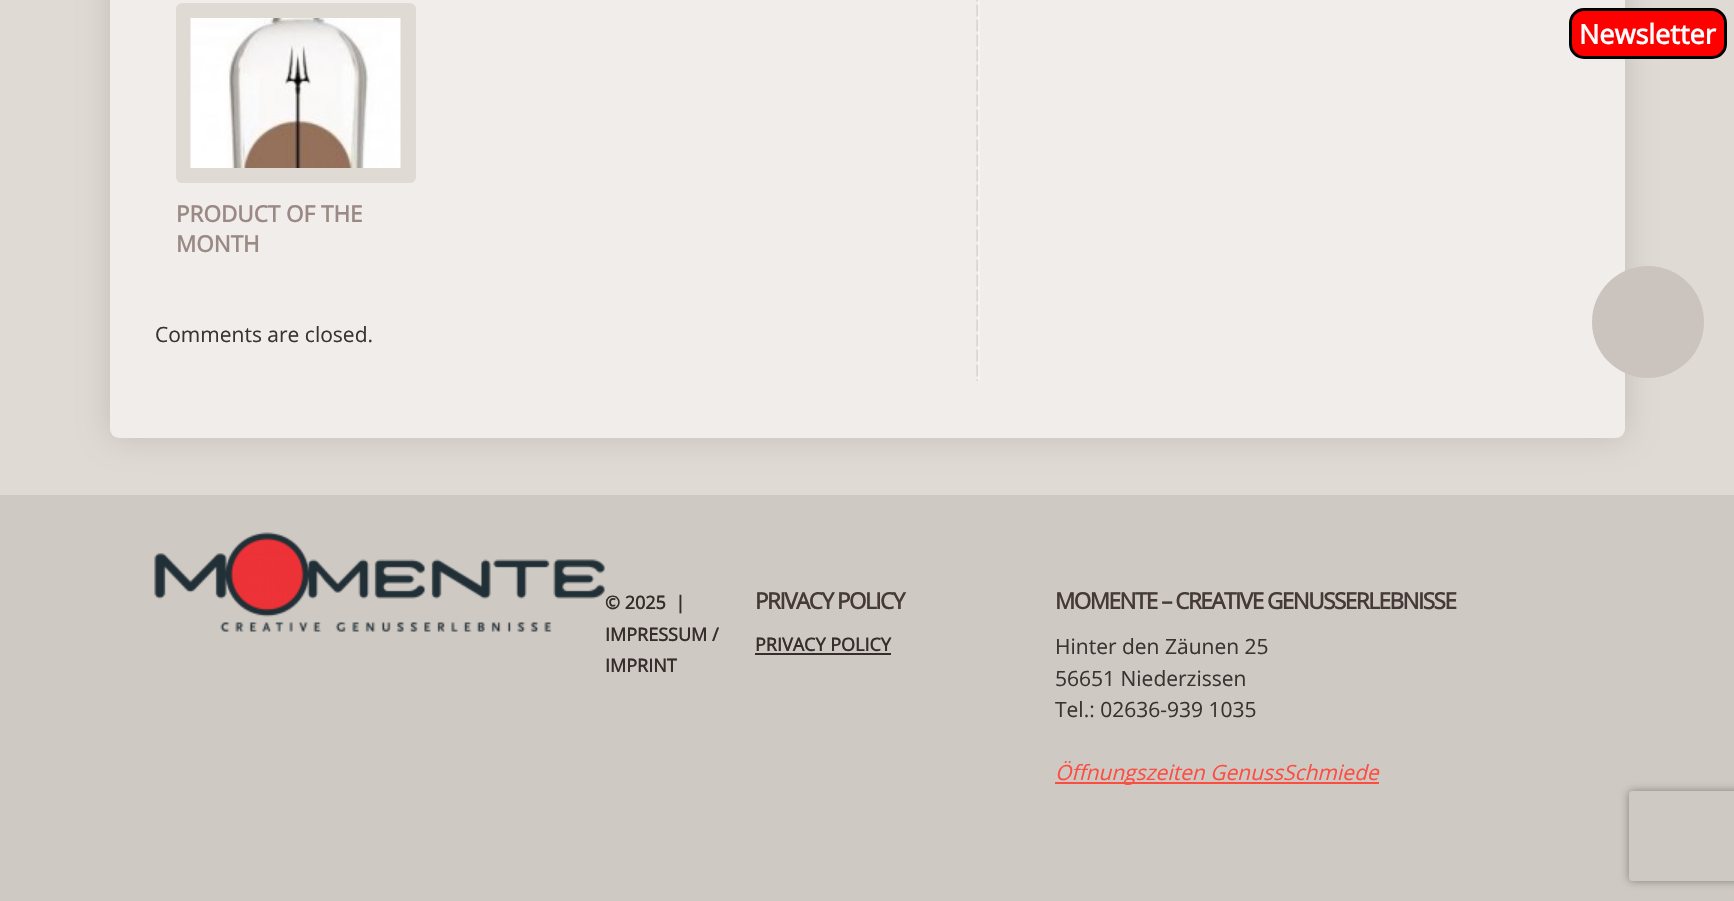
#include "include/core/SkBlurTypes.h"
#include "include/core/SkCanvas.h"
#include "include/core/SkData.h"
#include "include/core/SkFont.h"
#include "include/core/SkFontMgr.h"
#include "include/core/SkImage.h"
#include "include/core/SkMaskFilter.h"
#include "include/core/SkPaint.h"
#include "include/core/SkPathBuilder.h"
#include "include/core/SkTextBlob.h"
#include "include/effects/SkDashPathEffect.h"
#include "include/effects/SkGradientShader.h"
#include "include/utils/SkParsePath.h"

extern sk_sp<SkFontMgr> fontMgr;

static SkFont font(const char* family, int weight, float size, bool italic = false) {
    SkFontStyle style(weight, SkFontStyle::kNormal_Width,
        italic ? SkFontStyle::kItalic_Slant : SkFontStyle::kUpright_Slant);
    SkFont result(fontMgr->matchFamilyStyle(family, style), size);
    result.setSubpixel(true);
    return result;
}

static void drawLabel(SkCanvas* canvas, const char* s, float x, float y, const SkFont& font, SkColor color) {
    SkPaint ink(SkColor4f::FromColor(color));
    ink.setAntiAlias(true);
    canvas->drawString(s, x, y, font, ink);
}

static void drawTracked(SkCanvas* canvas, const char* s, float x, float y, const SkFont& font, const SkPaint& ink, float letter, float word) {
    std::vector<SkGlyphID> glyphs(font.countText(s, strlen(s), SkTextEncoding::kUTF8));
    std::vector<float> xs(glyphs.size());
    font.textToGlyphs(s, strlen(s), SkTextEncoding::kUTF8, glyphs);
    font.getXPos(glyphs, xs, x);
    float extra = 0;
    for (size_t i = 0; i < glyphs.size(); i++) {
        xs[i] += extra;
        extra += letter + word * (glyphs[i] == font.unicharToGlyph(' '));
    }
    canvas->drawTextBlob(SkTextBlob::MakeFromPosHGlyphs(glyphs, xs, y, font), 0, 0, ink);
}

static void fillRect(SkCanvas* canvas, float x, float y, float w, float h, SkColor color) {
    SkPaint ink(SkColor4f::FromColor(color));
    ink.setAntiAlias(true);
    canvas->drawRect(SkRect::MakeXYWH(x, y, w, h), ink);
}

static void fillRRect(SkCanvas* canvas, float x, float y, float w, float h, float radius, SkColor color) {
    SkPaint ink(SkColor4f::FromColor(color));
    ink.setAntiAlias(true);
    canvas->drawRoundRect(SkRect::MakeXYWH(x, y, w, h), radius, radius, ink);
}

static void drawPhoto(SkCanvas* canvas, const char* path, float x, float y, float w, float h) {
    auto image = SkImages::DeferredFromEncodedData(SkData::MakeFromFileName(path));
    canvas->drawImageRect(image, SkRect::MakeXYWH(x, y, w, h), SkSamplingOptions());
}

static SkPath parsePath(const char* data, bool evenOdd = false) {
    SkPath result = *SkParsePath::FromSVGString(data);
    if (evenOdd) result.setFillType(SkPathFillType::kEvenOdd);
    return result;
}

void draw(SkCanvas* canvas) {
    SkPaint paint;
    paint.setAntiAlias(true);
    canvas->clear(0xFFDFDAD4);
    paint.setColor(0xFFC4BDB7);
    paint.setMaskFilter(SkMaskFilter::MakeBlur(kNormal_SkBlurStyle, 16));
    canvas->drawRoundRect(SkRect::MakeXYWH(110, -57, 1515, 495), 9, 9, paint);
    paint.setMaskFilter(nullptr);
    fillRRect(canvas, 110, -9, 1515, 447, 9, 0xFFF0EDEA);
    paint.setColor(0xFFFF0000);
    canvas->drawRoundRect(SkRect::MakeXYWH(1570.5f, 9.5f, 155, 48), 13.5f, 13.5f, paint);
    paint.setStroke(true);
    paint.setStrokeWidth(3);
    paint.setColor(0xFF000000);
    canvas->drawRoundRect(SkRect::MakeXYWH(1570.5f, 9.5f, 155, 48), 13.5f, 13.5f, paint);
    SkFont font1 = font("Open Sans", 700, 27);
    drawLabel(canvas, "Newsletter", 1579, 44, font1, 0xFFFFFFFF);
    drawPhoto(canvas, "assets/img1.png", 976, 0, 4, 381);
    fillRRect(canvas, 176, 3, 240, 180, 6, 0xFFDFDAD4);
    drawPhoto(canvas, "assets/img2.png", 190, 18, 211, 150);
    SkFont font2 = font("Open Sans", 700, 22.5f);
    drawLabel(canvas, "PRODUCT OF THE", 176, 222, font2, 0xFF9A8984);
    drawLabel(canvas, "MONTH", 176, 252, font2, 0xFF9A8984);
    SkFont font3 = font("Open Sans", 400, 21);
    drawLabel(canvas, "Comments are closed.", 155, 342, font3, 0xFF383432);
    fillRect(canvas, 0, 495, 1734, 406, 0xFFCFC9C3);
    paint.setStroke(false);
    paint.setColor(0xFFCBC4BE);
    canvas->drawCircle(1648, 322, 56, paint);
    drawPhoto(canvas, "assets/img3.png", 154, 532, 451, 100);
    SkFont font4 = font("Open Sans", 700, 18);
    drawLabel(canvas, "© 2025  |", 605, 609, font4, 0xFF362E2C);
    drawLabel(canvas, "IMPRESSUM /", 605, 641, font4, 0xFF362E2C);
    drawLabel(canvas, "IMPRINT", 605, 672, font4, 0xFF362E2C);
    paint.setColor(0xFF453A38);
    drawTracked(canvas, "PRIVACY POLICY", 755, 609, font2, paint, -1.5f, 0);
    drawLabel(canvas, "PRIVACY POLICY", 755, 651, font4, 0xFF362E2C);
    fillRect(canvas, 755, 653, 136, 2, 0xFF362E2C);
    drawTracked(canvas, "MOMENTE – CREATIVE GENUSSERLEBNISSE", 1055, 609, font2, paint, -1.5f, 0);
    drawLabel(canvas, "Hinter den Zäunen 25", 1055, 654, font3, 0xFF383432);
    drawLabel(canvas, "56651 Niederzissen", 1055, 686, font3, 0xFF383432);
    drawLabel(canvas, "Tel.: 02636-939 1035", 1055, 717, font3, 0xFF383432);
    fillRect(canvas, 1055, 782, 324, 2, 0xFFFC4D43);
    SkFont font5 = font("Open Sans", 400, 21, true);
    drawLabel(canvas, "Öffnungszeiten GenussSchmiede", 1055, 780, font5, 0xFFFC4D43);
    canvas->save();
    canvas->clipPath(parsePath("M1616 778H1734V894H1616ZM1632 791H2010C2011.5 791 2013 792.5 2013 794V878C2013 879.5 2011.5 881 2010 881H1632C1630.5 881 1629 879.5 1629 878V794C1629 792.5 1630.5 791 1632 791Z", true), true);
    paint.setColor(0xFF808080);
    paint.setMaskFilter(SkMaskFilter::MakeBlur(kNormal_SkBlurStyle, 4));
    canvas->drawRoundRect(SkRect::MakeXYWH(1629, 791, 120, 90), 3, 3, paint);
    paint.setMaskFilter(nullptr);
    canvas->restore();
}
